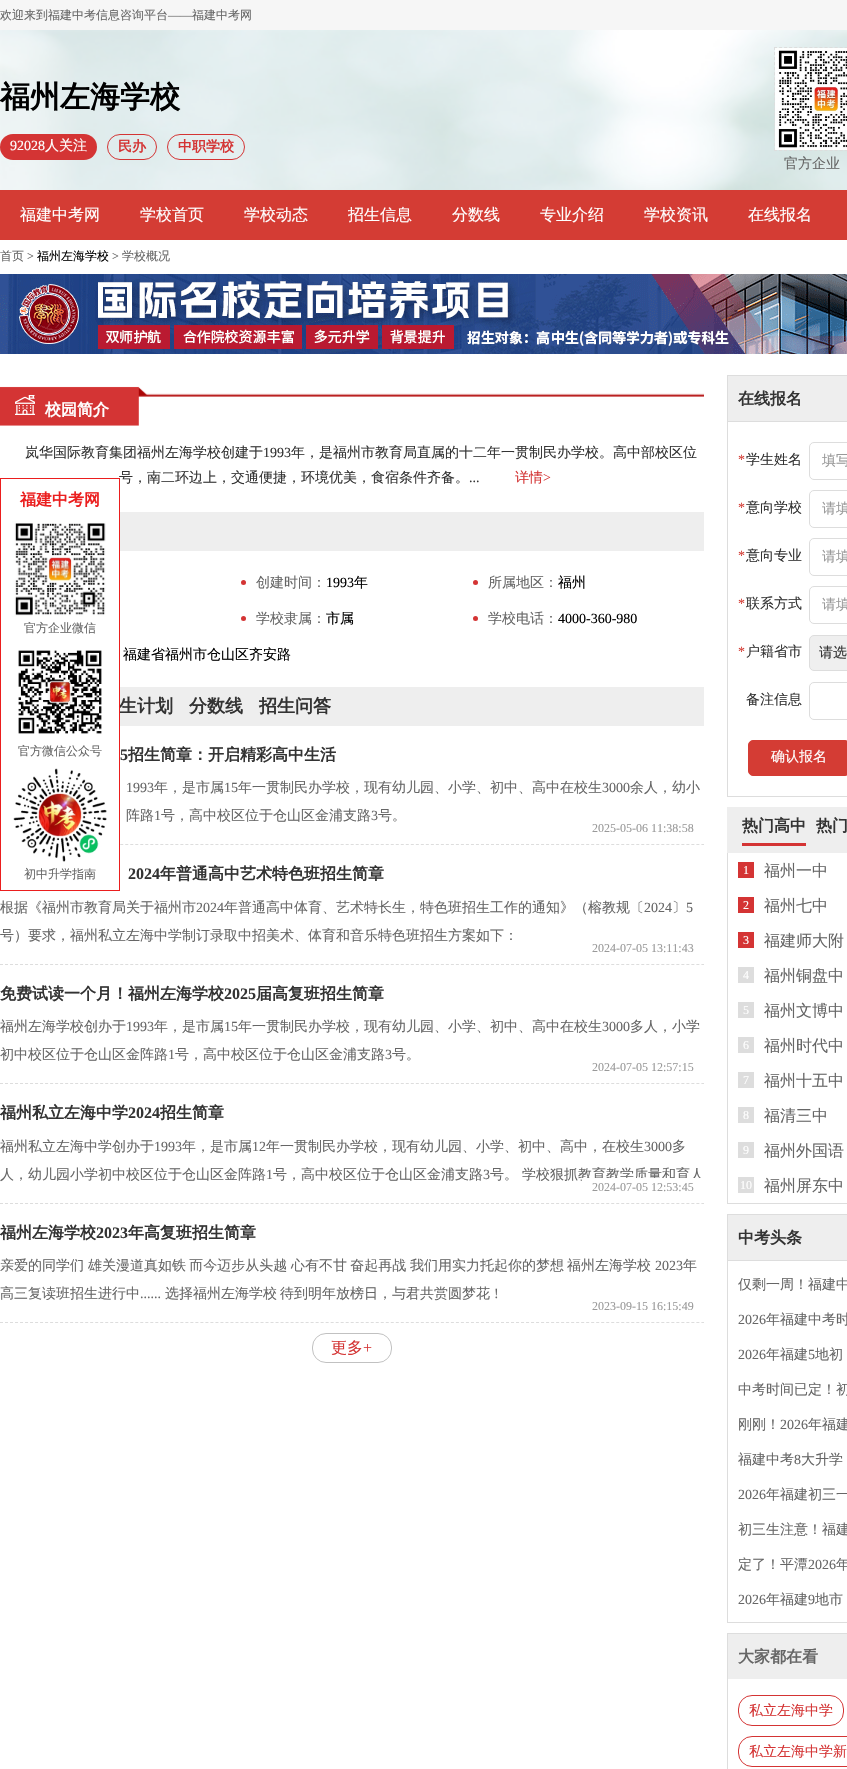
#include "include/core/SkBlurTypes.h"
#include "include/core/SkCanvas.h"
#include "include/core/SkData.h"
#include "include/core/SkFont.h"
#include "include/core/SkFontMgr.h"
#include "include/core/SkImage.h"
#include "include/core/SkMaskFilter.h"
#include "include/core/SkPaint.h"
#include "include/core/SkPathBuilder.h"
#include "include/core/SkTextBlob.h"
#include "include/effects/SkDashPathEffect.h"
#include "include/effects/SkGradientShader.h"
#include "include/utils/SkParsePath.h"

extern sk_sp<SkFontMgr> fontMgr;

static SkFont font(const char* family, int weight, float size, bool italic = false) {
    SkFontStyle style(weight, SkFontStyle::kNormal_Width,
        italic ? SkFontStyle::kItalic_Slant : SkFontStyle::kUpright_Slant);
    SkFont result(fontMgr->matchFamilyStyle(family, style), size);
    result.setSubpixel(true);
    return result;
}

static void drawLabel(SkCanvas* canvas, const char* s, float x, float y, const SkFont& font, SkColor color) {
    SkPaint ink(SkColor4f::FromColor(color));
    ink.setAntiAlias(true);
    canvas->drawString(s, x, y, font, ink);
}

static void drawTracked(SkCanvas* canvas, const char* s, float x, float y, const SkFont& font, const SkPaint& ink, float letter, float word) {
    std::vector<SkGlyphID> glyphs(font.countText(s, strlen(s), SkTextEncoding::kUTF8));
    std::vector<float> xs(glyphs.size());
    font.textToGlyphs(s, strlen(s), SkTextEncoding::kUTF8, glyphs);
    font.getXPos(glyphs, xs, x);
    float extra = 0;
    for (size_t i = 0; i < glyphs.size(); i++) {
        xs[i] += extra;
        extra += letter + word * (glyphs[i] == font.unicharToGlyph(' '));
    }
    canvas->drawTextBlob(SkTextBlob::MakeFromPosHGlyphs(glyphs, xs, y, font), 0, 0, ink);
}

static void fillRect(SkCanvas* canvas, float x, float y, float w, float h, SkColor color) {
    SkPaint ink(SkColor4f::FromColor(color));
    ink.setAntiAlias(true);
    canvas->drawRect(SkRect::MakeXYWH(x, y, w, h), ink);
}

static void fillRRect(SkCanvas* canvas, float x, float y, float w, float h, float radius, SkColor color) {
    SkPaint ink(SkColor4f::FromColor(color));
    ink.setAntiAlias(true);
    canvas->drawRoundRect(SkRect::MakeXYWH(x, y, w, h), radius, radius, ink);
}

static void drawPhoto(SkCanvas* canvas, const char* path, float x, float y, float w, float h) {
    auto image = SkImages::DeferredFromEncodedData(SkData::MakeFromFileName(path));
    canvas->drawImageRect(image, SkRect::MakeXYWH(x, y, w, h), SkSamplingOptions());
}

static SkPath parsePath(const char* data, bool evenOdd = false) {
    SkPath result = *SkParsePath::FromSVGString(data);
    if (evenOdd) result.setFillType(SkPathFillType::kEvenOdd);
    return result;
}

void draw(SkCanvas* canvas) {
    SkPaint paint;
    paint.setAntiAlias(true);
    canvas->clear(0xFFFFFFFF);
    fillRect(canvas, 0, 0, 847, 30, 0xFFF6F6F6);
    SkFont font1 = font("WenQuanYi Zen Hei", 500, 12);
    drawLabel(canvas, "欢迎来到福建中考信息咨询平台", 0, 19, font1, 0xFF666666);
    SkFont font2 = font("Liberation Serif", 400, 12);
    drawLabel(canvas, "——", 168, 19, font2, 0xFF666666);
    drawLabel(canvas, "福建中考网", 192, 19, font1, 0xFF666666);
    drawPhoto(canvas, "assets/img1.png", 0, 30, 847, 160);
    SkFont font3 = font("WenQuanYi Zen Hei", 700, 30);
    drawLabel(canvas, "福州左海学校", 0, 107, font3, 0xFF000000);
    fillRRect(canvas, 0, 134, 97, 26, 13, 0xFFD43434);
    SkFont font4 = font("Liberation Serif", 400, 14);
    drawLabel(canvas, "92028", 10, 150, font4, 0xFFFFFFFF);
    SkFont font5 = font("WenQuanYi Zen Hei", 500, 14);
    drawLabel(canvas, "人关注", 45, 150, font5, 0xFFFFFFFF);
    paint.setStroke(true);
    paint.setStrokeWidth(1);
    paint.setColor(0xFFD43434);
    canvas->drawRoundRect(SkRect::MakeXYWH(107.5f, 134.5f, 49, 25), 12.5f, 12.5f, paint);
    SkFont font6 = font("WenQuanYi Zen Hei", 700, 14);
    drawLabel(canvas, "民办", 118, 151, font6, 0xFFD43434);
    canvas->drawRoundRect(SkRect::MakeXYWH(167.5f, 134.5f, 77, 25), 12.5f, 12.5f, paint);
    drawLabel(canvas, "中职学校", 178, 151, font6, 0xFFD43434);
    paint.setColor(0xFFDDDDDD);
    paint.setPathEffect(SkDashPathEffect::Make({{3, 2.05f}}, 0));
    canvas->drawPath(parsePath("M774 47.5H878"), paint);
    paint.setPathEffect(nullptr);
    paint.setPathEffect(SkDashPathEffect::Make({{3, 2.05f}}, 0));
    canvas->drawPath(parsePath("M774 150.5H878"), paint);
    paint.setPathEffect(nullptr);
    paint.setPathEffect(SkDashPathEffect::Make({{3, 2.05f}}, 0));
    canvas->drawPath(parsePath("M774.5 47V151"), paint);
    paint.setPathEffect(nullptr);
    drawPhoto(canvas, "assets/img2.png", 775, 48, 72, 102);
    drawLabel(canvas, "官方企业", 784, 168, font5, 0xFF666666);
    fillRect(canvas, 0, 190, 847, 50, 0xFFD43C34);
    SkFont font7 = font("WenQuanYi Zen Hei", 500, 16);
    drawLabel(canvas, "福建中考网", 20, 220, font7, 0xFFFFFFFF);
    drawLabel(canvas, "学校首页", 140, 220, font7, 0xFFFFFFFF);
    drawLabel(canvas, "学校动态", 244, 220, font7, 0xFFFFFFFF);
    drawLabel(canvas, "招生信息", 348, 220, font7, 0xFFFFFFFF);
    drawLabel(canvas, "分数线", 452, 220, font7, 0xFFFFFFFF);
    drawLabel(canvas, "专业介绍", 540, 220, font7, 0xFFFFFFFF);
    drawLabel(canvas, "学校资讯", 644, 220, font7, 0xFFFFFFFF);
    drawLabel(canvas, "在线报名", 748, 220, font7, 0xFFFFFFFF);
    drawLabel(canvas, "首页", 0, 260, font1, 0xFF666666);
    drawLabel(canvas, ">", 27, 260, font2, 0xFF666666);
    drawLabel(canvas, "福州左海学校", 37, 260, font1, 0xFF000000);
    drawLabel(canvas, ">", 112, 260, font2, 0xFF666666);
    drawLabel(canvas, "学校概况", 122, 260, font1, 0xFF666666);
    drawPhoto(canvas, "assets/img3.png", 0, 274, 847, 80);
    drawPhoto(canvas, "assets/img4.png", 0, 386, 704, 40);
    drawPhoto(canvas, "assets/img5.png", 15, 395, 20, 20);
    SkFont font8 = font("WenQuanYi Zen Hei", 700, 16);
    drawLabel(canvas, "校园简介", 45, 415, font8, 0xFFFFFFFF);
    drawLabel(canvas, "岚华国际教育集团福州左海学校创建于", 25, 457, font5, 0xFF333333);
    drawLabel(canvas, "1993", 263, 457, font4, 0xFF333333);
    drawLabel(canvas, "年，是福州市教育局直属的十二年一贯制民办学校。高中部校区位", 291, 457, font5, 0xFF333333);
    drawLabel(canvas, "号，南二环边上，交通便捷，环境优美，食宿条件齐备。", 119, 482, font5, 0xFF333333);
    drawLabel(canvas, "...", 469, 482, font4, 0xFF333333);
    drawLabel(canvas, "详情", 515, 482, font5, 0xFFD43434);
    drawLabel(canvas, ">", 543, 482, font4, 0xFFD43434);
    fillRect(canvas, 120, 512, 584, 39, 0xFFEEEEEE);
    paint.setStroke(false);
    paint.setColor(0xFFD43434);
    canvas->drawCircle(243.5f, 582.5f, 2.5f, paint);
    drawLabel(canvas, "创建时间：", 256, 587, font5, 0xFF666666);
    drawLabel(canvas, "1993", 326, 587, font4, 0xFF000000);
    drawLabel(canvas, "年", 354, 587, font5, 0xFF000000);
    canvas->drawCircle(475.5f, 582.5f, 2.5f, paint);
    drawLabel(canvas, "所属地区：", 488, 587, font5, 0xFF666666);
    drawLabel(canvas, "福州", 558, 587, font5, 0xFF000000);
    canvas->drawCircle(243.5f, 618.5f, 2.5f, paint);
    drawLabel(canvas, "学校隶属：", 256, 623, font5, 0xFF666666);
    drawLabel(canvas, "市属", 326, 623, font5, 0xFF000000);
    canvas->drawCircle(475.5f, 618.5f, 2.5f, paint);
    drawLabel(canvas, "学校电话：", 488, 623, font5, 0xFF666666);
    drawLabel(canvas, "4000-360-980", 558, 623, font4, 0xFF000000);
    drawLabel(canvas, "福建省福州市仓山区齐安路", 123, 659, font5, 0xFF000000);
    fillRect(canvas, 120, 687, 584, 39, 0xFFEEEEEE);
    SkFont font9 = font("WenQuanYi Zen Hei", 700, 18);
    drawLabel(canvas, "生计划", 119, 712, font9, 0xFF333333);
    drawLabel(canvas, "分数线", 189, 712, font9, 0xFF333333);
    drawLabel(canvas, "招生问答", 259, 712, font9, 0xFF333333);
    paint.setStroke(true);
    paint.setColor(0xFFDDDDDD);
    paint.setPathEffect(SkDashPathEffect::Make({{3, 2.01f}}, 0));
    canvas->drawPath(parsePath("M0 844.5H704"), paint);
    paint.setPathEffect(nullptr);
    SkFont font10 = font("Liberation Serif", 700, 16);
    drawLabel(canvas, "5", 120, 760, font10, 0xFF333333);
    drawLabel(canvas, "招生简章：开启精彩高中生活", 128, 760, font8, 0xFF333333);
    drawLabel(canvas, "1993", 126, 792, font4, 0xFF666666);
    drawLabel(canvas, "年，是市属", 154, 792, font5, 0xFF666666);
    drawLabel(canvas, "15", 224, 792, font4, 0xFF666666);
    drawLabel(canvas, "年一贯制民办学校，现有幼儿园、小学、初中、高中在校生", 238, 792, font5, 0xFF666666);
    drawLabel(canvas, "3000", 602, 792, font4, 0xFF666666);
    drawLabel(canvas, "余人，幼小", 630, 792, font5, 0xFF666666);
    drawLabel(canvas, "阵路", 126, 820, font5, 0xFF666666);
    drawLabel(canvas, "1", 154, 820, font4, 0xFF666666);
    drawLabel(canvas, "号，高中校区位于仓山区金浦支路", 161, 820, font5, 0xFF666666);
    drawLabel(canvas, "3", 371, 820, font4, 0xFF666666);
    drawLabel(canvas, "号。", 378, 820, font5, 0xFF666666);
    drawLabel(canvas, "2025-05-06 11:38:58", 592, 832, font2, 0xFF999999);
    paint.setPathEffect(SkDashPathEffect::Make({{3, 2.01f}}, 0));
    canvas->drawPath(parsePath("M0 964.5H704"), paint);
    paint.setPathEffect(nullptr);
    drawLabel(canvas, "2024", 128, 879, font10, 0xFF333333);
    drawLabel(canvas, "年普通高中艺术特色班招生简章", 160, 879, font8, 0xFF333333);
    drawLabel(canvas, "根据《福州市教育局关于福州市", 0, 912, font5, 0xFF666666);
    drawLabel(canvas, "2024", 196, 912, font4, 0xFF666666);
    drawLabel(canvas, "年普通高中体育、艺术特长生，特色班招生工作的通知》（榕教规〔", 224, 912, font5, 0xFF666666);
    drawLabel(canvas, "2024", 644, 912, font4, 0xFF666666);
    drawLabel(canvas, "〕", 672, 912, font5, 0xFF666666);
    drawLabel(canvas, "5", 686, 912, font4, 0xFF666666);
    drawLabel(canvas, "号）要求，福州私立左海中学制订录取中招美术、体育和音乐特色班招生方案如下：", 0, 940, font5, 0xFF666666);
    drawLabel(canvas, "2024-07-05 13:11:43", 592, 952, font2, 0xFF999999);
    paint.setPathEffect(SkDashPathEffect::Make({{3, 2.01f}}, 0));
    canvas->drawPath(parsePath("M0 1083.5H704"), paint);
    paint.setPathEffect(nullptr);
    drawLabel(canvas, "免费试读一个月！福州左海学校", 0, 999, font8, 0xFF333333);
    drawLabel(canvas, "2025", 224, 999, font10, 0xFF333333);
    drawLabel(canvas, "届高复班招生简章", 256, 999, font8, 0xFF333333);
    drawLabel(canvas, "福州左海学校创办于", 0, 1031, font5, 0xFF666666);
    drawLabel(canvas, "1993", 126, 1031, font4, 0xFF666666);
    drawLabel(canvas, "年，是市属", 154, 1031, font5, 0xFF666666);
    drawLabel(canvas, "15", 224, 1031, font4, 0xFF666666);
    drawLabel(canvas, "年一贯制民办学校，现有幼儿园、小学、初中、高中在校生", 238, 1031, font5, 0xFF666666);
    drawLabel(canvas, "3000", 602, 1031, font4, 0xFF666666);
    drawLabel(canvas, "多人，小学", 630, 1031, font5, 0xFF666666);
    drawLabel(canvas, "初中校区位于仓山区金阵路", 0, 1059, font5, 0xFF666666);
    drawLabel(canvas, "1", 168, 1059, font4, 0xFF666666);
    drawLabel(canvas, "号，高中校区位于仓山区金浦支路", 175, 1059, font5, 0xFF666666);
    drawLabel(canvas, "3", 385, 1059, font4, 0xFF666666);
    drawLabel(canvas, "号。", 392, 1059, font5, 0xFF666666);
    drawLabel(canvas, "2024-07-05 12:57:15", 592, 1071, font2, 0xFF999999);
    paint.setPathEffect(SkDashPathEffect::Make({{3, 2.01f}}, 0));
    canvas->drawPath(parsePath("M0 1203.5H704"), paint);
    paint.setPathEffect(nullptr);
    drawLabel(canvas, "福州私立左海中学", 0, 1118, font8, 0xFF333333);
    drawLabel(canvas, "2024", 128, 1118, font10, 0xFF333333);
    drawLabel(canvas, "招生简章", 160, 1118, font8, 0xFF333333);
    drawLabel(canvas, "福州私立左海中学创办于", 0, 1151, font5, 0xFF666666);
    drawLabel(canvas, "1993", 154, 1151, font4, 0xFF666666);
    drawLabel(canvas, "年，是市属", 182, 1151, font5, 0xFF666666);
    drawLabel(canvas, "12", 252, 1151, font4, 0xFF666666);
    drawLabel(canvas, "年一贯制民办学校，现有幼儿园、小学、初中、高中，在校生", 266, 1151, font5, 0xFF666666);
    drawLabel(canvas, "3000", 644, 1151, font4, 0xFF666666);
    drawLabel(canvas, "多", 672, 1151, font5, 0xFF666666);
    drawLabel(canvas, "人，幼儿园小学初中校区位于仓山区金阵路", 0, 1179, font5, 0xFF666666);
    drawLabel(canvas, "1", 266, 1179, font4, 0xFF666666);
    drawLabel(canvas, "号，高中校区位于仓山区金浦支路", 273, 1179, font5, 0xFF666666);
    drawLabel(canvas, "3", 483, 1179, font4, 0xFF666666);
    drawLabel(canvas, "号。", 490, 1179, font5, 0xFF666666);
    drawLabel(canvas, "学校狠抓教育教学质量和育人", 522, 1179, font5, 0xFF666666);
    fillRect(canvas, 582, 1178, 122, 4, 0xFFFFFFFF);
    drawLabel(canvas, "2024-07-05 12:53:45", 592, 1191, font2, 0xFF999999);
    paint.setPathEffect(SkDashPathEffect::Make({{3, 2.01f}}, 0));
    canvas->drawPath(parsePath("M0 1322.5H704"), paint);
    paint.setPathEffect(nullptr);
    drawLabel(canvas, "福州左海学校", 0, 1238, font8, 0xFF333333);
    drawLabel(canvas, "2023", 96, 1238, font10, 0xFF333333);
    drawLabel(canvas, "年高复班招生简章", 128, 1238, font8, 0xFF333333);
    drawLabel(canvas, "亲爱的同学们", 0, 1270, font5, 0xFF666666);
    paint.setStroke(false);
    paint.setColor(0xFF666666);
    drawTracked(canvas, "雄关漫道真如铁 而今迈步从头越", 88, 1270, font5, paint, 0, -1);
    drawTracked(canvas, "心有不甘 奋起再战", 291, 1270, font5, paint, 0, -1);
    drawLabel(canvas, "我们用实力托起你的梦想", 410, 1270, font5, 0xFF666666);
    drawLabel(canvas, "福州左海学校", 567, 1270, font5, 0xFF666666);
    drawLabel(canvas, "2023", 655, 1270, font4, 0xFF666666);
    drawLabel(canvas, "年", 683, 1270, font5, 0xFF666666);
    drawLabel(canvas, "高三复读班招生进行中", 0, 1298, font5, 0xFF666666);
    drawLabel(canvas, "......", 140, 1298, font4, 0xFF666666);
    drawLabel(canvas, "选择福州左海学校", 165, 1298, font5, 0xFF666666);
    drawLabel(canvas, "待到明年放榜日，与君共赏圆梦花", 280, 1298, font5, 0xFF666666);
    drawLabel(canvas, "!", 494, 1298, font4, 0xFF666666);
    drawLabel(canvas, "2023-09-15 16:15:49", 592, 1310, font2, 0xFF999999);
    paint.setStroke(true);
    paint.setColor(0xFFC1C1C1);
    canvas->drawRoundRect(SkRect::MakeXYWH(312.5f, 1333.5f, 79, 29), 13.5f, 13.5f, paint);
    drawLabel(canvas, "更多", 331, 1353, font7, 0xFFD43434);
    SkFont font11 = font("Liberation Serif", 400, 16);
    drawLabel(canvas, "+", 363, 1353, font11, 0xFFD43434);
    fillRect(canvas, 727, 796, 120, 1, 0xFFDDDDDD);
    fillRect(canvas, 727, 375, 1, 422, 0xFFDDDDDD);
    fillRect(canvas, 728, 376, 119, 45, 0xFFEEEEEE);
    fillRect(canvas, 728, 375, 119, 1, 0xFFDDDDDD);
    fillRect(canvas, 728, 421, 119, 1, 0xFFDDDDDD);
    drawLabel(canvas, "在线报名", 738, 404, font8, 0xFF333333);
    drawLabel(canvas, "*", 738, 464, font4, 0xFFD43C34);
    drawLabel(canvas, "学生姓名", 746, 464, font5, 0xFF333333);
    paint.setColor(0xFFDDDDDD);
    canvas->drawRoundRect(SkRect::MakeXYWH(809.5f, 442.5f, 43, 37), 4.5f, 4.5f, paint);
    canvas->save();
    canvas->clipRect(SkRect::MakeXYWH(822, 452, 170, 18));
    drawLabel(canvas, "填写", 822, 465, font5, 0xFF999999);
    canvas->restore();
    drawLabel(canvas, "*", 738, 512, font4, 0xFFD43C34);
    drawLabel(canvas, "意向学校", 746, 512, font5, 0xFF333333);
    canvas->drawRoundRect(SkRect::MakeXYWH(809.5f, 490.5f, 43, 37), 4.5f, 4.5f, paint);
    drawLabel(canvas, "请填", 822, 513, font5, 0xFF999999);
    drawLabel(canvas, "*", 738, 560, font4, 0xFFD43C34);
    drawLabel(canvas, "意向专业", 746, 560, font5, 0xFF333333);
    canvas->drawRoundRect(SkRect::MakeXYWH(809.5f, 538.5f, 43, 37), 4.5f, 4.5f, paint);
    drawLabel(canvas, "请填", 822, 561, font5, 0xFF999999);
    drawLabel(canvas, "*", 738, 608, font4, 0xFFD43C34);
    drawLabel(canvas, "联系方式", 746, 608, font5, 0xFF333333);
    canvas->drawRoundRect(SkRect::MakeXYWH(809.5f, 586.5f, 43, 37), 4.5f, 4.5f, paint);
    drawLabel(canvas, "请填", 822, 609, font5, 0xFF999999);
    drawLabel(canvas, "*", 738, 656, font4, 0xFFD43C34);
    drawLabel(canvas, "户籍省市", 746, 656, font5, 0xFF333333);
    paint.setStroke(false);
    paint.setColor(0xFFEFEFEF);
    canvas->drawRoundRect(SkRect::MakeXYWH(809.5f, 635.5f, 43, 35), 4.5f, 4.5f, paint);
    paint.setStroke(true);
    paint.setColor(0xFFDDDDDD);
    canvas->drawRoundRect(SkRect::MakeXYWH(809.5f, 635.5f, 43, 35), 4.5f, 4.5f, paint);
    drawLabel(canvas, "请选", 819, 657, font5, 0xFF333333);
    drawLabel(canvas, "备注信息", 746, 704, font5, 0xFF333333);
    canvas->drawRoundRect(SkRect::MakeXYWH(809.5f, 682.5f, 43, 37), 4.5f, 4.5f, paint);
    paint.setStroke(false);
    paint.setColor(0xFFD43C34);
    canvas->drawRoundRect(SkRect::MakeXYWH(748.5f, 740.5f, 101, 35), 4.5f, 4.5f, paint);
    paint.setStroke(true);
    canvas->drawRoundRect(SkRect::MakeXYWH(748.5f, 740.5f, 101, 35), 4.5f, 4.5f, paint);
    drawLabel(canvas, "确认报名", 771, 761, font5, 0xFFFFFFFF);
    fillRect(canvas, 727, 807, 120, 46, 0xFFEEEEEE);
    fillRect(canvas, 742, 843, 64, 3, 0xFFD43434);
    drawLabel(canvas, "热门高中", 742, 831, font8, 0xFF333333);
    drawLabel(canvas, "热门", 816, 831, font8, 0xFF333333);
    fillRect(canvas, 727, 1203, 120, 1, 0xFFDDDDDD);
    fillRect(canvas, 727, 853, 1, 351, 0xFFDDDDDD);
    fillRect(canvas, 738, 862, 16, 16, 0xFFD43434);
    drawLabel(canvas, "1", 743, 874, font2, 0xFFFFFFFF);
    drawLabel(canvas, "福州一中", 764, 876, font7, 0xFF666666);
    fillRect(canvas, 738, 897, 16, 16, 0xFFD43434);
    drawLabel(canvas, "2", 743, 909, font2, 0xFFFFFFFF);
    drawLabel(canvas, "福州七中", 764, 911, font7, 0xFF666666);
    fillRect(canvas, 738, 932, 16, 16, 0xFFD43434);
    drawLabel(canvas, "3", 743, 944, font2, 0xFFFFFFFF);
    drawLabel(canvas, "福建师大附", 764, 946, font7, 0xFF666666);
    fillRect(canvas, 738, 967, 16, 16, 0xFFDDDDDD);
    drawLabel(canvas, "4", 743, 979, font2, 0xFFFFFFFF);
    drawLabel(canvas, "福州铜盘中", 764, 981, font7, 0xFF666666);
    fillRect(canvas, 738, 1002, 16, 16, 0xFFDDDDDD);
    drawLabel(canvas, "5", 743, 1014, font2, 0xFFFFFFFF);
    drawLabel(canvas, "福州文博中", 764, 1016, font7, 0xFF666666);
    fillRect(canvas, 738, 1037, 16, 16, 0xFFDDDDDD);
    drawLabel(canvas, "6", 743, 1049, font2, 0xFFFFFFFF);
    drawLabel(canvas, "福州时代中", 764, 1051, font7, 0xFF666666);
    fillRect(canvas, 738, 1072, 16, 16, 0xFFDDDDDD);
    drawLabel(canvas, "7", 743, 1084, font2, 0xFFFFFFFF);
    drawLabel(canvas, "福州十五中", 764, 1086, font7, 0xFF666666);
    fillRect(canvas, 738, 1107, 16, 16, 0xFFDDDDDD);
    drawLabel(canvas, "8", 743, 1119, font2, 0xFFFFFFFF);
    drawLabel(canvas, "福清三中", 764, 1121, font7, 0xFF666666);
    fillRect(canvas, 738, 1142, 16, 16, 0xFFDDDDDD);
    drawLabel(canvas, "9", 743, 1154, font2, 0xFFFFFFFF);
    drawLabel(canvas, "福州外国语", 764, 1156, font7, 0xFF666666);
    fillRect(canvas, 738, 1177, 16, 16, 0xFFDDDDDD);
    drawLabel(canvas, "10", 740, 1189, font2, 0xFFFFFFFF);
    drawLabel(canvas, "福州屏东中", 764, 1191, font7, 0xFF666666);
    fillRect(canvas, 727, 1622, 120, 1, 0xFFDDDDDD);
    fillRect(canvas, 727, 1214, 1, 409, 0xFFDDDDDD);
    fillRect(canvas, 728, 1215, 119, 45, 0xFFEEEEEE);
    fillRect(canvas, 728, 1214, 119, 1, 0xFFDDDDDD);
    fillRect(canvas, 728, 1260, 119, 1, 0xFFDDDDDD);
    drawLabel(canvas, "中考头条", 738, 1243, font8, 0xFF333333);
    drawLabel(canvas, "仅剩一周！福建中", 738, 1289, font5, 0xFF666666);
    drawLabel(canvas, "2026", 738, 1324, font4, 0xFF666666);
    drawLabel(canvas, "年福建中考时", 766, 1324, font5, 0xFF666666);
    drawLabel(canvas, "2026", 738, 1359, font4, 0xFF666666);
    drawLabel(canvas, "年福建", 766, 1359, font5, 0xFF666666);
    drawLabel(canvas, "5", 808, 1359, font4, 0xFF666666);
    drawLabel(canvas, "地初", 815, 1359, font5, 0xFF666666);
    drawLabel(canvas, "中考时间已定！初", 738, 1394, font5, 0xFF666666);
    drawLabel(canvas, "刚刚！", 738, 1429, font5, 0xFF666666);
    drawLabel(canvas, "2026", 780, 1429, font4, 0xFF666666);
    drawLabel(canvas, "年福建", 808, 1429, font5, 0xFF666666);
    drawLabel(canvas, "福建中考", 738, 1464, font5, 0xFF666666);
    drawLabel(canvas, "8", 794, 1464, font4, 0xFF666666);
    drawLabel(canvas, "大升学", 801, 1464, font5, 0xFF666666);
    drawLabel(canvas, "2026", 738, 1499, font4, 0xFF666666);
    drawLabel(canvas, "年福建初三一", 766, 1499, font5, 0xFF666666);
    drawLabel(canvas, "初三生注意！福建", 738, 1534, font5, 0xFF666666);
    drawLabel(canvas, "定了！平潭", 738, 1569, font5, 0xFF666666);
    drawLabel(canvas, "2026", 808, 1569, font4, 0xFF666666);
    drawLabel(canvas, "年", 836, 1569, font5, 0xFF666666);
    drawLabel(canvas, "2026", 738, 1604, font4, 0xFF666666);
    drawLabel(canvas, "年福建", 766, 1604, font5, 0xFF666666);
    drawLabel(canvas, "9", 808, 1604, font4, 0xFF666666);
    drawLabel(canvas, "地市", 815, 1604, font5, 0xFF666666);
    paint.setColor(0xFFDDDDDD);
    canvas->drawRect(SkRect::MakeXYWH(727.5f, 1633.5f, 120, 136), paint);
    fillRect(canvas, 728, 1634, 119, 45, 0xFFEEEEEE);
    drawLabel(canvas, "大家都在看", 738, 1662, font8, 0xFF666666);
    paint.setColor(0xFFD43434);
    canvas->drawRoundRect(SkRect::MakeXYWH(738.5f, 1695.5f, 105, 30), 13.5f, 13.5f, paint);
    drawLabel(canvas, "私立左海中学", 749, 1715, font5, 0xFFD43434);
    canvas->drawRoundRect(SkRect::MakeXYWH(738.5f, 1736.5f, 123, 30), 13.5f, 13.5f, paint);
    drawLabel(canvas, "私立左海中学新", 749, 1756, font5, 0xFFD43434);
    fillRect(canvas, 1, 844, 118, 1, 0xFFFFFFFF);
    paint.setColor(0xFFEB1E1E);
    canvas->drawRect(SkRect::MakeXYWH(0.5f, 478.5f, 119, 412), paint);
    drawLabel(canvas, "福建中考网", 20, 505, font8, 0xFFEB1E1E);
    drawPhoto(canvas, "assets/img6.png", 12, 521, 94, 96);
    drawLabel(canvas, "官方企业微信", 24, 632, font1, 0xFF666666);
    drawPhoto(canvas, "assets/img7.png", 18, 650, 84, 84);
    drawLabel(canvas, "官方微信公众号", 18, 755, font1, 0xFF666666);
    drawPhoto(canvas, "assets/img8.png", 13, 768, 94, 94);
    drawLabel(canvas, "初中升学指南", 24, 878, font1, 0xFF666666);
}
